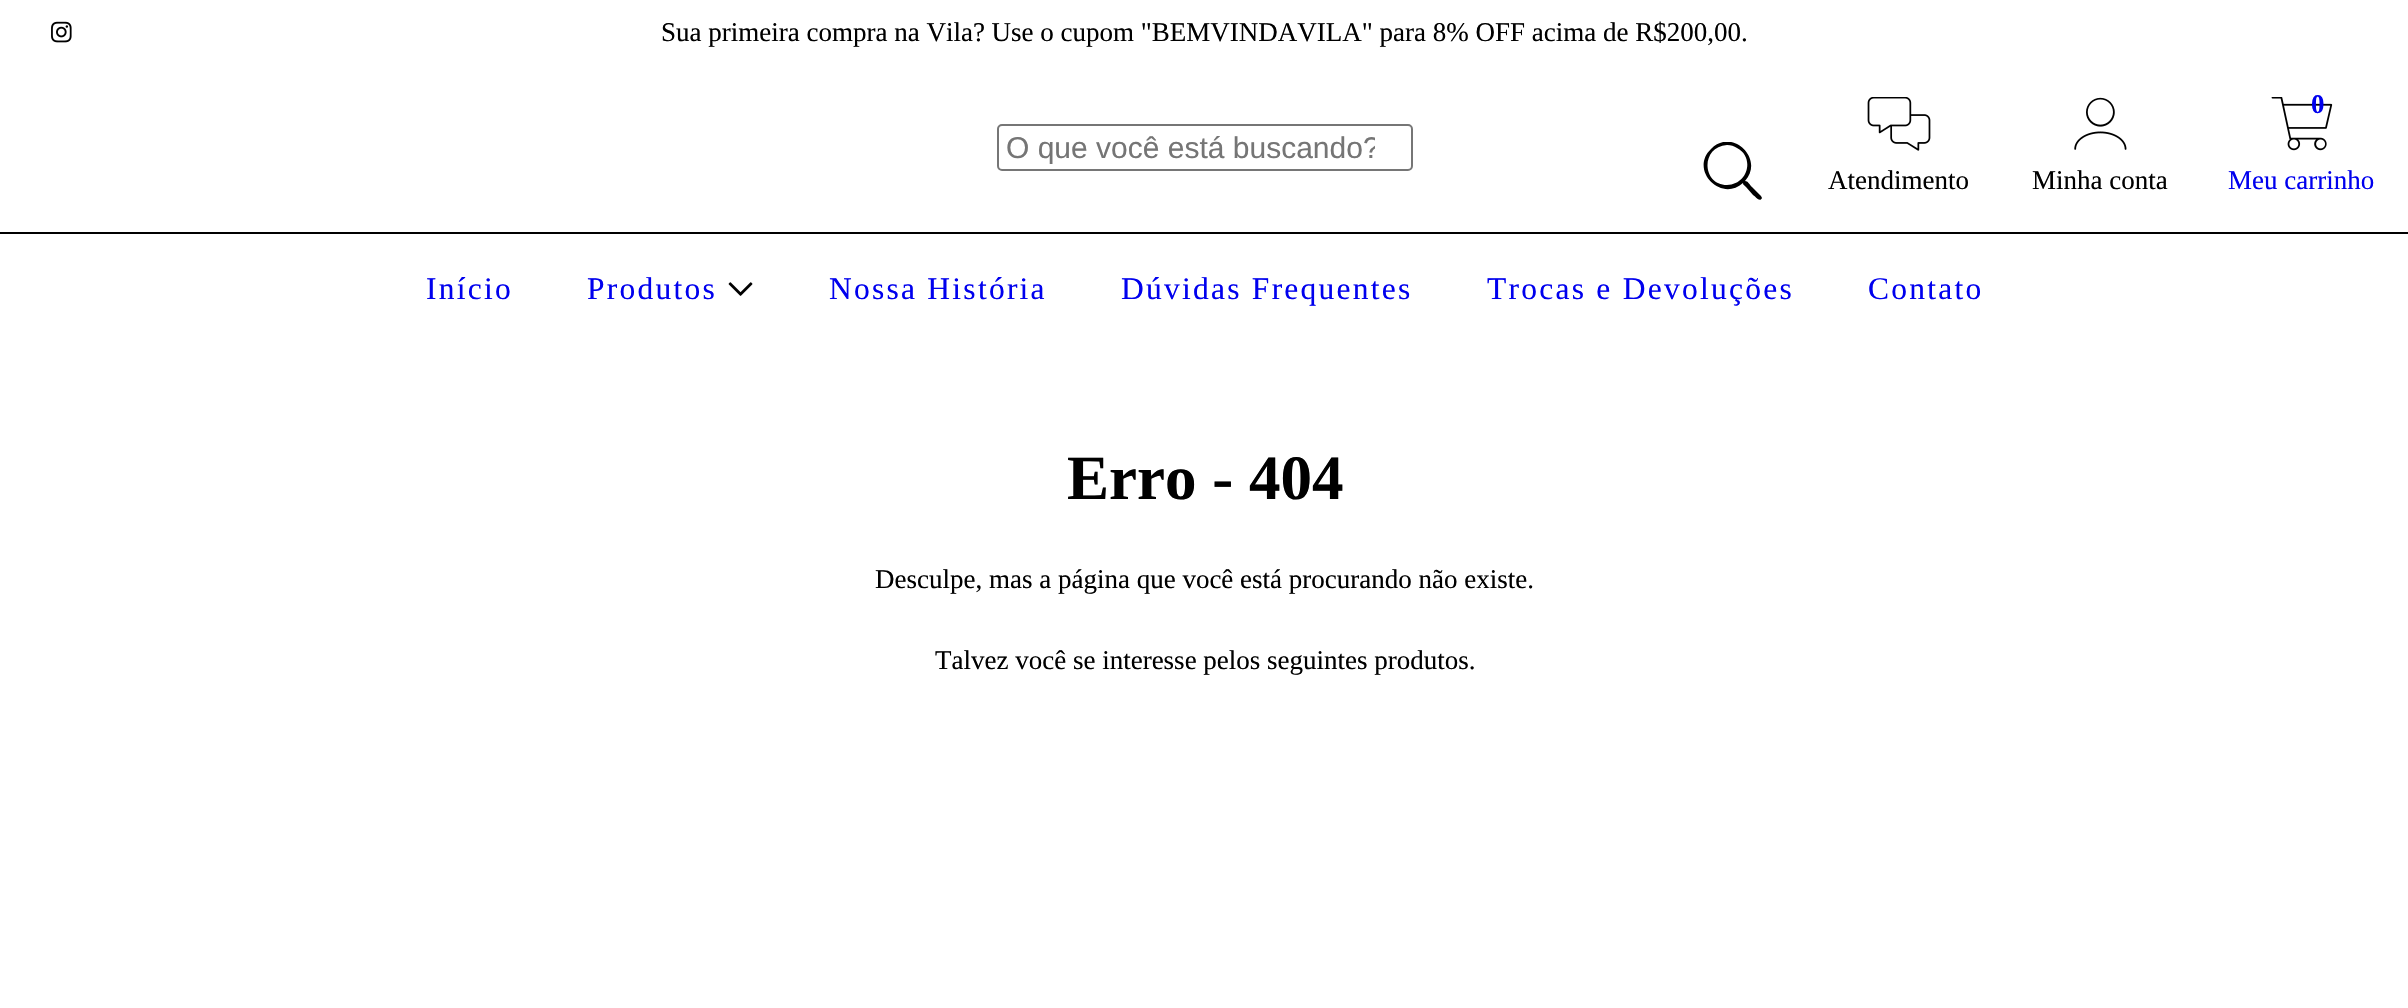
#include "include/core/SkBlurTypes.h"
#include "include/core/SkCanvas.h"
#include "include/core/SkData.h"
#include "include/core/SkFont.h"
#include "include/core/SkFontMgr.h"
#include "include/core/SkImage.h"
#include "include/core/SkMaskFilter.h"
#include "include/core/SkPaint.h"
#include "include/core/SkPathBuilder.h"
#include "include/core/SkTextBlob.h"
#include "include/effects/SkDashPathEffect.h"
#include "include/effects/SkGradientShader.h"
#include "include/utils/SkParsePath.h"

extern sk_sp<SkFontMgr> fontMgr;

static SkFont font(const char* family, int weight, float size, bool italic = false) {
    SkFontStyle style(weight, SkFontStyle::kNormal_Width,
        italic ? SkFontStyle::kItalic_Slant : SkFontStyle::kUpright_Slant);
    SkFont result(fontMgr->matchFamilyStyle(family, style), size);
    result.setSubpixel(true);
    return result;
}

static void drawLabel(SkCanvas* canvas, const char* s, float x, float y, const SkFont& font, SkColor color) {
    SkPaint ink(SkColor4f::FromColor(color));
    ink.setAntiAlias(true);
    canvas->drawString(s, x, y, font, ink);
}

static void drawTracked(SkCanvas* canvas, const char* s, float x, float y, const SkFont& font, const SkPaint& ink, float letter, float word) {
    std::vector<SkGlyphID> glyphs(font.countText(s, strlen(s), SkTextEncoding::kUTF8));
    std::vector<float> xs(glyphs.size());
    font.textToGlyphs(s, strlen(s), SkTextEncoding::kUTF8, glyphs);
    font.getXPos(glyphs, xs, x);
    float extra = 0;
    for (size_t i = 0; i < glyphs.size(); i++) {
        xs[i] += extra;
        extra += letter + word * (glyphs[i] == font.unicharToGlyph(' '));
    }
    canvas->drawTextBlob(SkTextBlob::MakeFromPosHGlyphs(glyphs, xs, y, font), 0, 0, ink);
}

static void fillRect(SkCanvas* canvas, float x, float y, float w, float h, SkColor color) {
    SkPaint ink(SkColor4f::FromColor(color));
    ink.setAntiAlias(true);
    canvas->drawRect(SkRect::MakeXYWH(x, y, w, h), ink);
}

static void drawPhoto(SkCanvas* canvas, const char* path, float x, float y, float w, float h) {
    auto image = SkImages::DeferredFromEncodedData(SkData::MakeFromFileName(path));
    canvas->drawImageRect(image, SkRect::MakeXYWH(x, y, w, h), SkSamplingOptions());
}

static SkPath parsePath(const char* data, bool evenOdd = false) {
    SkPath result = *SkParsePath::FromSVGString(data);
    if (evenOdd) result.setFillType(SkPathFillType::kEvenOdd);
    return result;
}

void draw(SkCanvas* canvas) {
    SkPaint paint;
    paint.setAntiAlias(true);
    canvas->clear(0xFFFFFFFF);
    drawPhoto(canvas, "assets/img1.png", 51, 21, 21, 22);
    SkFont font1 = font("Liberation Serif", 400, 27);
    drawLabel(canvas, "Sua primeira compra na Vila? Use o cupom \"BEMVINDAVILA\" para 8% OFF acima de R$200,00.", 661, 41, font1, 0xFF000000);
    paint.setStroke(true);
    paint.setStrokeWidth(2);
    paint.setColor(0xFF767676);
    canvas->drawRoundRect(SkRect::MakeXYWH(998, 125, 414, 45), 4, 4, paint);
    canvas->save();
    canvas->clipRect(SkRect::MakeXYWH(1006, 131, 369, 33));
    SkFont font2 = font("Liberation Sans", 400, 30);
    drawLabel(canvas, "O que você está buscando?", 1006, 158, font2, 0xFF757575);
    canvas->restore();
    canvas->save();
    canvas->clipRect(SkRect::MakeXYWH(1703, 142, 60, 60));
    paint.setStroke(false);
    paint.setColor(0xFF000000);
    canvas->drawPath(parsePath("M1761 196L1752 187C1749 184 1748 181 1745 181C1765 159 1732 127 1711 149C1689 170 1721 203 1743 183C1743 185 1744 185 1746 187L1753 195C1755 196 1760 203 1762 198ZM1727 185C1702 185 1700 147 1727 145C1731 145 1734 146 1737 148C1755 157 1748 185 1727 185Z"), paint);
    canvas->restore();
    drawPhoto(canvas, "assets/img2.png", 1867, 97, 64, 54);
    drawLabel(canvas, "Atendimento", 1828, 189, font1, 0xFF000000);
    drawPhoto(canvas, "assets/img3.png", 2074, 97, 53, 53);
    drawLabel(canvas, "Minha conta", 2032, 189, font1, 0xFF000000);
    drawPhoto(canvas, "assets/img4.png", 2271, 97, 62, 54);
    SkFont font3 = font("Liberation Serif", 700, 27);
    drawLabel(canvas, "0", 2311, 113, font3, 0xFF0000EE);
    drawLabel(canvas, "Meu carrinho", 2228, 189, font1, 0xFF0000EE);
    fillRect(canvas, 0, 232, 2408, 2, 0xFF000000);
    SkFont font4 = font("Liberation Serif", 400, 31.5f);
    paint.setColor(0xFF0000EE);
    drawTracked(canvas, "Início", 426, 299, font4, paint, 2.25f, 0);
    drawTracked(canvas, "Produtos", 587, 299, font4, paint, 2.25f, 0);
    drawPhoto(canvas, "assets/img5.png", 728, 282, 25, 14);
    drawTracked(canvas, "Nossa História", 829, 299, font4, paint, 2.25f, 0);
    drawTracked(canvas, "Dúvidas Frequentes", 1121, 299, font4, paint, 2.25f, 0);
    drawTracked(canvas, "Trocas e Devoluções", 1487, 299, font4, paint, 2.25f, 0);
    drawTracked(canvas, "Contato", 1868, 299, font4, paint, 2.25f, 0);
    SkFont font5 = font("Liberation Serif", 700, 63);
    drawLabel(canvas, "Erro - 404", 1067, 499, font5, 0xFF000000);
    drawLabel(canvas, "Desculpe, mas a página que você está procurando não existe.", 875, 588, font1, 0xFF000000);
    drawLabel(canvas, "Talvez você se interesse pelos seguintes produtos.", 935, 669, font1, 0xFF000000);
}
